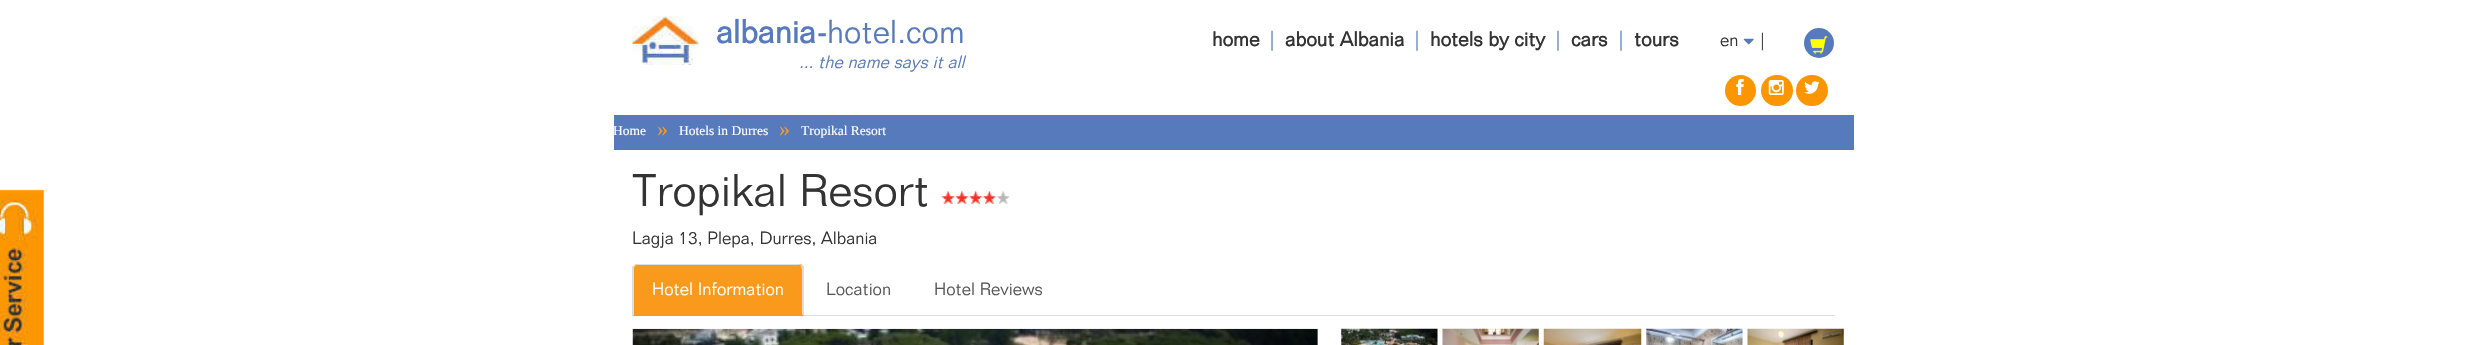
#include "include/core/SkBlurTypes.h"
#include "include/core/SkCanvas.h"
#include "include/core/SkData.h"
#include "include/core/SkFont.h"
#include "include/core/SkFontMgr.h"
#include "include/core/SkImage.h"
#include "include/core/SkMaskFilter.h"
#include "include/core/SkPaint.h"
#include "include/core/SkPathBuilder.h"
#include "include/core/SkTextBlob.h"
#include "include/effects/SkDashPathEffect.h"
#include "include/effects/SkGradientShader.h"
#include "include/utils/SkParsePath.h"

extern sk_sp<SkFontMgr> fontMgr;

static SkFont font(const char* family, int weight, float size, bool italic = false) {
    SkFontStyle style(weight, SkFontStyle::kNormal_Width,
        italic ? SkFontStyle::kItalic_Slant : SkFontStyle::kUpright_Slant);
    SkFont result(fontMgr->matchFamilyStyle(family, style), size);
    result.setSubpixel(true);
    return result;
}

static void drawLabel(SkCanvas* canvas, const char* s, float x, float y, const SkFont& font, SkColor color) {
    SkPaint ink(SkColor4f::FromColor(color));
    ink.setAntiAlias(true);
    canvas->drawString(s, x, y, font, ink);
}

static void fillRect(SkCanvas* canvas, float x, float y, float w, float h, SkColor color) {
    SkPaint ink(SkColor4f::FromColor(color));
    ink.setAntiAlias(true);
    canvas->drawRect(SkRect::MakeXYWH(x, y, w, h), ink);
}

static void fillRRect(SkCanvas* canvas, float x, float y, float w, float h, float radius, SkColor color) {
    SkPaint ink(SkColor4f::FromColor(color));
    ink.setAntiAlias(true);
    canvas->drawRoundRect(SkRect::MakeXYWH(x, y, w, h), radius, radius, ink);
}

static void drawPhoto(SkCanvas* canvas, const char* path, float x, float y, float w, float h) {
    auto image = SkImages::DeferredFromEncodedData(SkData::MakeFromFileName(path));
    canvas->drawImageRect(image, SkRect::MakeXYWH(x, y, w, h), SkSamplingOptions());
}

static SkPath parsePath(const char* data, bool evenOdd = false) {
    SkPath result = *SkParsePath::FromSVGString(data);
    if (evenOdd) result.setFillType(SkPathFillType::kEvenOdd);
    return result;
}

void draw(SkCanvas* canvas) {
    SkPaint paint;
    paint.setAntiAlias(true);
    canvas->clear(0xFFFFFFFF);
    drawPhoto(canvas, "assets/img1.png", 632, 16, 67, 49);
    SkFont font1 = font("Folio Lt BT", 700, 32.5f);
    drawLabel(canvas, "albania-", 716, 43, font1, 0xFF577ABD);
    SkFont font2 = font("Folio Lt BT", 300, 32.5f);
    drawLabel(canvas, "hotel.com", 827, 43, font2, 0xFF577ABD);
    SkFont font3 = font("Folio Lt BT", 300, 17.5f, true);
    drawLabel(canvas, "... the name says it all", 799, 68, font3, 0xFF577ABD);
    SkFont font4 = font("Folio Lt BT", 700, 20);
    drawLabel(canvas, "home", 1212, 46, font4, 0xFF333333);
    SkFont font5 = font("Folio Lt BT", 300, 20);
    drawLabel(canvas, "|", 1267, 46, font5, 0xFF577ABD);
    drawLabel(canvas, "about Albania", 1285, 46, font4, 0xFF333333);
    drawLabel(canvas, "|", 1412, 46, font5, 0xFF577ABD);
    drawLabel(canvas, "hotels by city", 1430, 46, font4, 0xFF333333);
    drawLabel(canvas, "|", 1553, 46, font5, 0xFF577ABD);
    drawLabel(canvas, "cars", 1571, 46, font4, 0xFF333333);
    drawLabel(canvas, "|", 1616, 46, font5, 0xFF577ABD);
    drawLabel(canvas, "tours", 1634, 46, font4, 0xFF333333);
    SkFont font6 = font("Folio Lt BT", 300, 17.5f);
    drawLabel(canvas, "en", 1720, 46, font6, 0xFF333333);
    drawPhoto(canvas, "assets/img2.png", 1743, 38, 11, 7);
    drawLabel(canvas, "|", 1758, 46, font6, 0xFF333333);
    paint.setColor(0xFF577ABD);
    canvas->drawCircle(1819, 43, 15, paint);
    drawPhoto(canvas, "assets/img3.png", 1810, 36, 18, 18);
    paint.setColor(0xFFFB9600);
    canvas->drawCircle(1740.5f, 90.5f, 15.5f, paint);
    drawPhoto(canvas, "assets/img4.png", 1736, 78, 8, 17);
    fillRRect(canvas, 1761, 75, 32, 31, 15.5f, 0xFFFB9600);
    drawPhoto(canvas, "assets/img5.png", 1768, 80, 16, 15);
    fillRRect(canvas, 1796, 75, 32, 31, 15.5f, 0xFFFB9600);
    drawPhoto(canvas, "assets/img6.png", 1804, 81, 16, 13);
    fillRect(canvas, 614, 115, 1240, 35, 0xFF577ABD);
    SkFont font7 = font("Liberation Serif", 400, 13.5f);
    drawLabel(canvas, "Home", 613, 135, font7, 0xFFFFFFFF);
    SkFont font8 = font("Liberation Serif", 400, 22);
    drawLabel(canvas, "»", 657, 136, font8, 0xFFF99A1C);
    drawLabel(canvas, "Hotels in Durres", 679, 135, font7, 0xFFFFFFFF);
    drawLabel(canvas, "»", 779, 136, font8, 0xFFF99A1C);
    drawLabel(canvas, "Tropikal Resort", 801, 135, font7, 0xFFFFFFFF);
    drawPhoto(canvas, "assets/img7.png", 0, 189, 44, 156);
    SkFont font9 = font("Folio Lt BT", 300, 45);
    drawLabel(canvas, "Tropikal Resort", 632, 206, font9, 0xFF333333);
    drawPhoto(canvas, "assets/img8.png", 941, 191, 69, 13);
    drawLabel(canvas, "Lagja 13, Plepa, Durres, Albania", 632, 244, font6, 0xFF333333);
    fillRect(canvas, 804, 315, 1031, 1, 0xFFDDDDDD);
    paint.setColor(0xFFF99A1C);
    canvas->drawPath(parsePath("M638 264H799C802 264 804 266 804 269V316H633V269C633 266 635 264 638 264Z"), paint);
    paint.setColor(0xFFDDDDDD);
    canvas->drawPath(parsePath("M638 264L634 265L635 266C636 265 637 265 638 265H800L801 266L802 265L799 264Z"), paint);
    canvas->drawPath(parsePath("M802 265L804 267V316L802 314V269L801 266Z"), paint);
    canvas->drawPath(parsePath("M632 267L634 265L635 266C634 267 634 268 634 269V315L632 316Z"), paint);
    drawLabel(canvas, "Hotel Information", 652, 295, font6, 0xFFFFFFFF);
    drawLabel(canvas, "Location", 826, 295, font6, 0xFF555555);
    drawLabel(canvas, "Hotel Reviews", 934, 295, font6, 0xFF555555);
    drawPhoto(canvas, "assets/img9.png", 632, 328, 686, 17);
    {
        const SkColor colors[] = {0x00000000, 0x40000000};
        const float stops[] = {0, 1};
        const SkPoint ends[] = {{1215, 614}, {1318, 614}};
        paint.setShader(SkGradientShader::MakeLinear(ends, colors, stops, 2, SkTileMode::kClamp));
        paint.setAlpha(255);
    }
    canvas->drawRect(SkRect::MakeXYWH(1240, 329, 78, 16), paint);
    drawPhoto(canvas, "assets/img10.png", 1341, 328, 97, 17);
    drawPhoto(canvas, "assets/img11.png", 1442, 328, 97, 17);
    drawPhoto(canvas, "assets/img12.png", 1543, 328, 99, 17);
    drawPhoto(canvas, "assets/img13.png", 1646, 328, 97, 17);
    drawPhoto(canvas, "assets/img14.png", 1747, 328, 97, 17);
}
